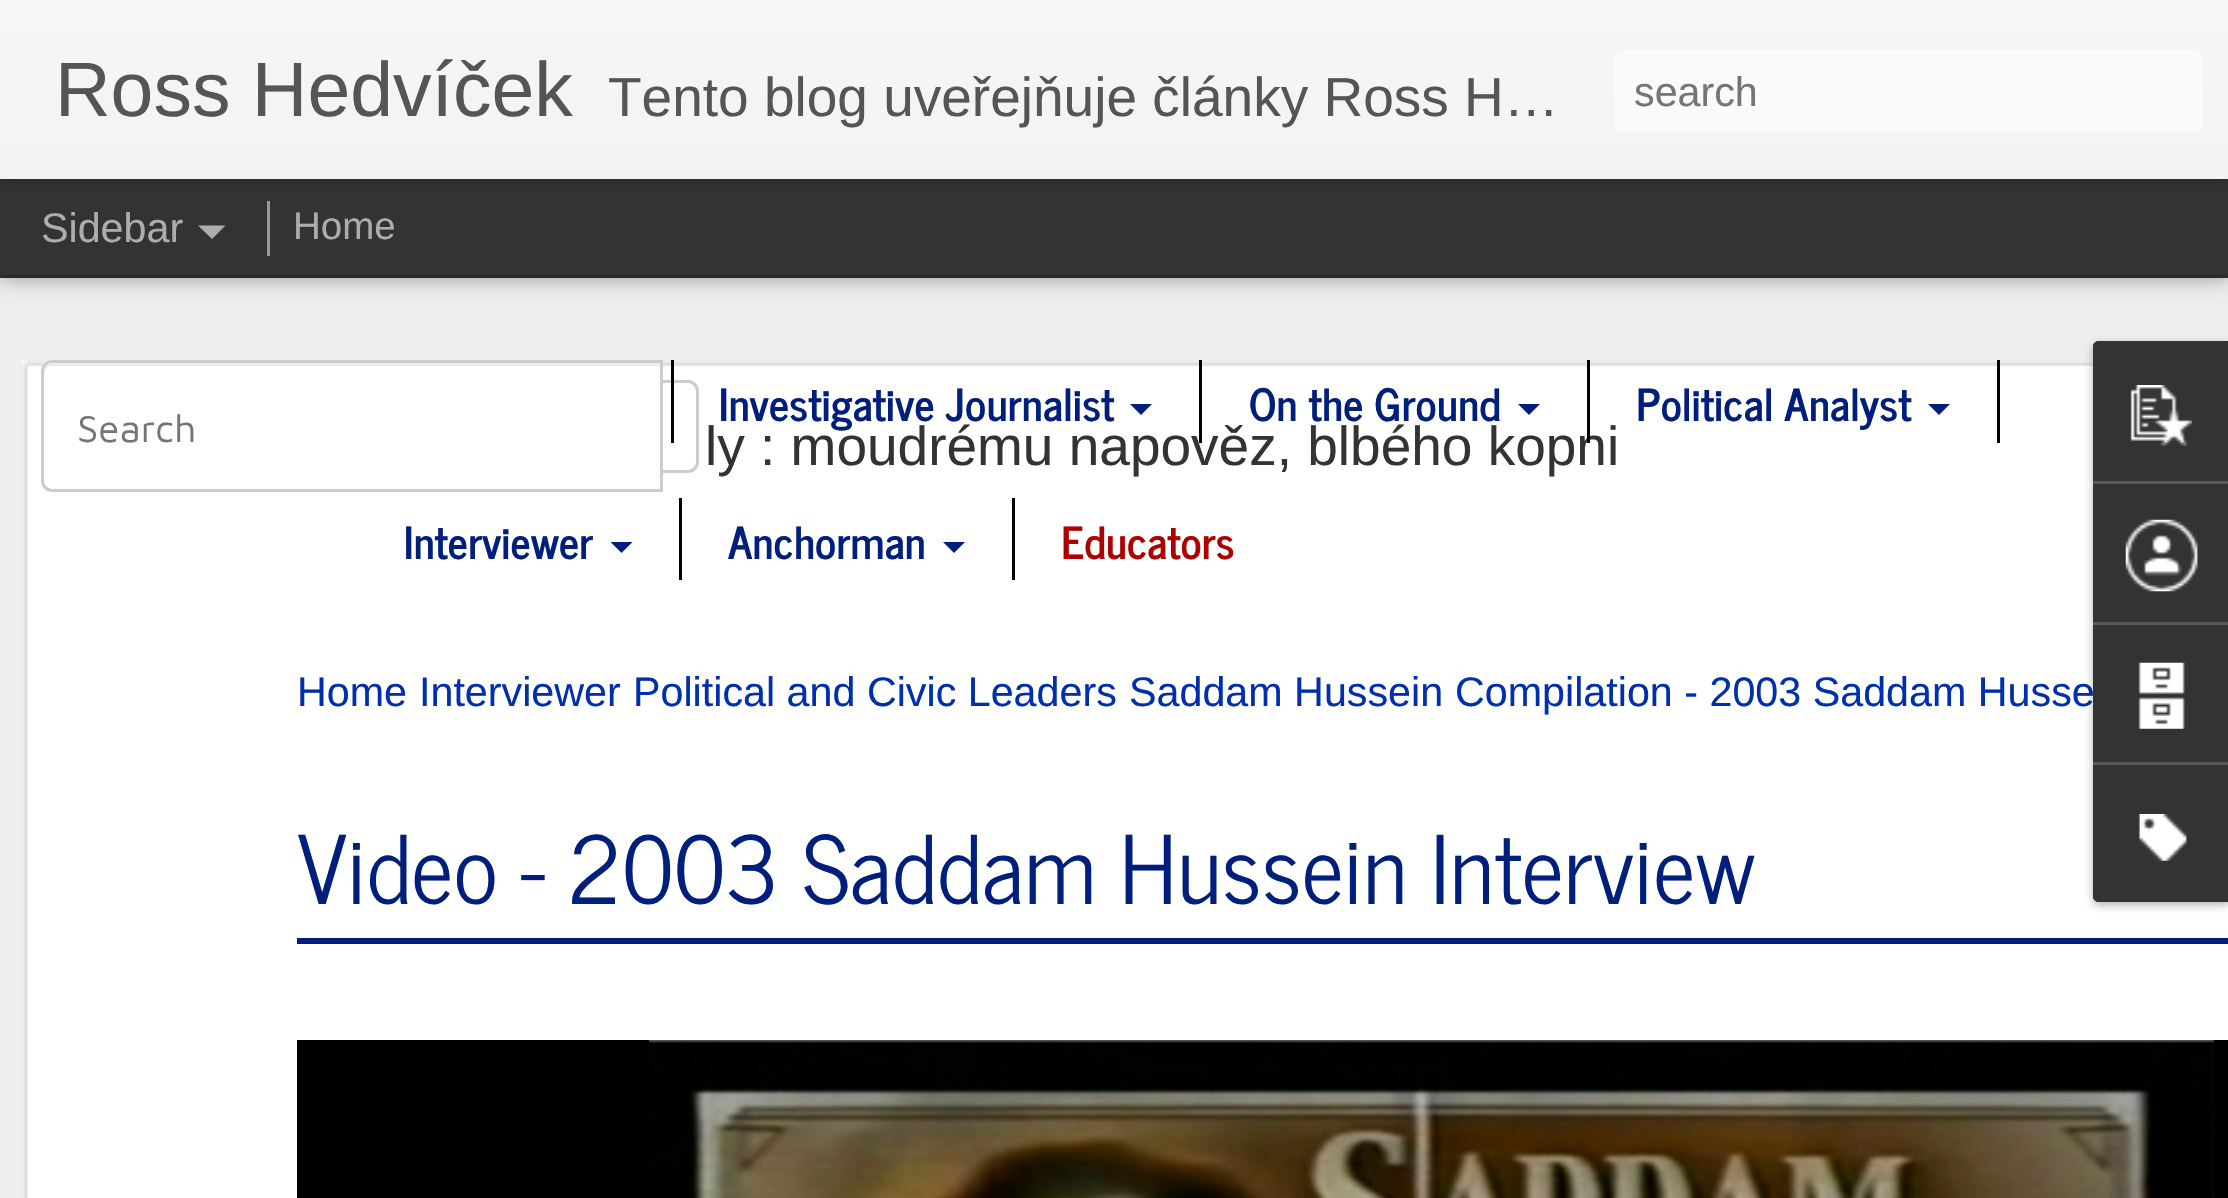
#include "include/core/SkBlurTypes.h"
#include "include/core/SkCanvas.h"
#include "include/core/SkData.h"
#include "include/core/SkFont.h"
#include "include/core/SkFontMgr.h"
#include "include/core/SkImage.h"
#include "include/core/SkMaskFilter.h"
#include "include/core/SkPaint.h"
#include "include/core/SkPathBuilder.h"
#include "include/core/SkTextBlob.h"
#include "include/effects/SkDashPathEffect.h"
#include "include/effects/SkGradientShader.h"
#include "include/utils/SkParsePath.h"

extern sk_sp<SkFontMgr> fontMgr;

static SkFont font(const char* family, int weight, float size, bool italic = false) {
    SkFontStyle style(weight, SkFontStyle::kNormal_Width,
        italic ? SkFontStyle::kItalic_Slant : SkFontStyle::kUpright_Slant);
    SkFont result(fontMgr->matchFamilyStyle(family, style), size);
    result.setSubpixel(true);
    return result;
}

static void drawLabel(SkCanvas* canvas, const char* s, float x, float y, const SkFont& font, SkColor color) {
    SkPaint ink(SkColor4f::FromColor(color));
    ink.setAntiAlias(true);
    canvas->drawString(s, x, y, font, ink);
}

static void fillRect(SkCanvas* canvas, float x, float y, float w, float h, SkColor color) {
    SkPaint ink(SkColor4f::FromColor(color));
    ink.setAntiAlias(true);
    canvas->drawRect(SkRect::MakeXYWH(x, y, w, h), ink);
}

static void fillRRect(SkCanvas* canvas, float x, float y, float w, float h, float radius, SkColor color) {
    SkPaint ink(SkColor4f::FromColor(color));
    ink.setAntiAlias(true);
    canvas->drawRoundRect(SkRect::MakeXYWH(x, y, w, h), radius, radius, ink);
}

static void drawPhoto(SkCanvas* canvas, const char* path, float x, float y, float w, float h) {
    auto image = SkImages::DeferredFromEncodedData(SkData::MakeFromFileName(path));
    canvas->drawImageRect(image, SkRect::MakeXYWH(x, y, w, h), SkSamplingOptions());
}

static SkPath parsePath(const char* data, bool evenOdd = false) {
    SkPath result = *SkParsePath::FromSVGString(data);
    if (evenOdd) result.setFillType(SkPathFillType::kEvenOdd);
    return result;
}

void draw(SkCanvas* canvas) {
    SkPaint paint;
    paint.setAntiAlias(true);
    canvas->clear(0xFF333333);
    fillRect(canvas, 0, 278, 2228, 920, 0xFFEEEEEE);
    paint.setColor(0x80000000);
    paint.setMaskFilter(SkMaskFilter::MakeBlur(kNormal_SkBlurStyle, 11));
    canvas->drawRect(SkRect::MakeXYWH(0, 179, 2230, 96), paint);
    paint.setMaskFilter(nullptr);
    fillRect(canvas, 0, 179, 2228, 96, 0xFF333333);
    paint.setColor(0x4D000000);
    paint.setMaskFilter(SkMaskFilter::MakeBlur(kNormal_SkBlurStyle, 7));
    canvas->drawRect(SkRect::MakeXYWH(0, 0, 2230, 179), paint);
    paint.setMaskFilter(nullptr);
    {
        const SkColor colors[] = {0xFFF6F6F6, 0xFFF3F3F3};
        const float stops[] = {0, 1};
        const SkPoint ends[] = {{0, 0}, {0, 179}};
        paint.setShader(SkGradientShader::MakeLinear(ends, colors, stops, 2, SkTileMode::kClamp));
        paint.setAlpha(255);
    }
    canvas->drawRect(SkRect::MakeXYWH(0, 0, 2228, 179), paint);
    SkFont font1 = font("Liberation Sans", 400, 77);
    drawLabel(canvas, "Ross Hedvíček", 55, 116, font1, 0xFF555555);
    SkFont font2 = font("Liberation Sans", 400, 55);
    drawLabel(canvas, "Tento blog uveřejňuje články Ross H…", 608, 116, font2, 0xFF555555);
    fillRRect(canvas, 1614, 50, 589, 82, 8, 0xFFFAFAFA);
    SkFont font3 = font("Liberation Sans", 400, 41.25f);
    drawLabel(canvas, "search", 1634, 106, font3, 0xFF757575);
    drawLabel(canvas, "Sidebar", 41, 242, font3, 0xFFADADAD);
    paint.setShader(nullptr);
    paint.setColor(0xFFADADAD);
    canvas->drawPath(parsePath("M198 225.5H225.5L212 239Z"), paint);
    fillRect(canvas, 267, 201, 3, 55, 0xFF999999);
    SkFont font4 = font("Liberation Sans", 400, 38.5f);
    drawLabel(canvas, "Home", 293, 239, font4, 0xFFADADAD);
    fillRect(canvas, 22, 360, 2206, 838, 0xFFFFFFFF);
    drawPhoto(canvas, "assets/img1.png", 22, 360, 2071, 838);
    paint.setStroke(true);
    paint.setStrokeWidth(3);
    paint.setColor(0xFFCCCCCC);
    canvas->drawPath(parsePath("M661.5 381.5H688C693 381.5 697.5 386 697.5 391V462C697.5 467 693 471.5 688 471.5H661.5Z"), paint);
    paint.setStroke(false);
    paint.setColor(0xFFFFFFFF);
    canvas->drawPath(parsePath("M52 360H663V492H52C46 492 41 487 41 481V371C41 365 46 360 52 360Z"), paint);
    paint.setColor(0xFFECECEC);
    canvas->drawPath(parsePath("M52 366H660V363H52C48 363 44 367 44 371V374C44 369 48 366 52 366Z"), paint);
    paint.setStroke(true);
    paint.setColor(0xFFCCCCCC);
    canvas->drawPath(parsePath("M52 361.5H661.5V490.5H52C47 490.5 42.5 486 42.5 481V371C42.5 366 47 361.5 52 361.5Z"), paint);
    SkFont font5 = font("Maven Pro", 400, 38.5f);
    drawLabel(canvas, "Search", 77, 442, font5, 0xFF757575);
    fillRect(canvas, 671, 360, 3, 83, 0xFF000000);
    drawLabel(canvas, "ly : moudrému napověz, blbého kopni", 705, 465, font2, 0xFF333333);
    fillRect(canvas, 1199, 360, 3, 83, 0xFF000000);
    SkFont font6 = font("News Cycle", 700, 44);
    drawLabel(canvas, "Investigative Journalist", 719, 421, font6, 0xFF001F7C);
    paint.setStroke(false);
    paint.setColor(0xFF001F7C);
    canvas->drawPath(parsePath("M1130 404H1152L1141 415Z"), paint);
    fillRect(canvas, 1587, 360, 3, 83, 0xFF000000);
    drawLabel(canvas, "On the Ground", 1249, 421, font6, 0xFF001F7C);
    canvas->drawPath(parsePath("M1518 404H1540L1529 415Z"), paint);
    fillRect(canvas, 1997, 360, 3, 83, 0xFF000000);
    drawLabel(canvas, "Political Analyst", 1636, 421, font6, 0xFF001F7C);
    canvas->drawPath(parsePath("M1928 404H1950L1939 415Z"), paint);
    fillRect(canvas, 679, 498, 3, 82, 0xFF000000);
    drawLabel(canvas, "Interviewer", 404, 559, font6, 0xFF001F7C);
    canvas->drawPath(parsePath("M610.5 542H632.5L621.5 553Z"), paint);
    fillRect(canvas, 1012, 498, 3, 82, 0xFF000000);
    drawLabel(canvas, "Anchorman", 728, 559, font6, 0xFF001F7C);
    canvas->drawPath(parsePath("M943 542H965L954 553Z"), paint);
    drawLabel(canvas, "Educators", 1061, 559, font6, 0xFFAD0000);
    drawLabel(canvas, "Home", 297, 706, font3, 0xFF002FAD);
    drawLabel(canvas, "Interviewer", 419, 706, font3, 0xFF002FAD);
    drawLabel(canvas, "Political and Civic Leaders", 633, 706, font3, 0xFF002FAD);
    drawLabel(canvas, "Saddam Hussein", 1129, 706, font3, 0xFF002FAD);
    drawLabel(canvas, "Compilation - 2003 Saddam Husse", 1455, 706, font3, 0xFF002FAD);
    fillRect(canvas, 297, 938, 1931, 6, 0xFF001F7C);
    SkFont font7 = font("News Cycle", 400, 93.5f);
    drawLabel(canvas, "Video - 2003 Saddam Hussein Interview", 297, 904, font7, 0xFF001F7C);
    fillRect(canvas, 297, 1040, 1931, 158, 0xFF000000);
    drawPhoto(canvas, "assets/img2.png", 649, 1040, 1565, 158);
    paint.setColor(0x4D000000);
    paint.setMaskFilter(SkMaskFilter::MakeBlur(kNormal_SkBlurStyle, 4));
    canvas->drawRoundRect(SkRect::MakeXYWH(2093, 344, 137, 561), 6, 6, paint);
    paint.setMaskFilter(nullptr);
    paint.setColor(0xFF333333);
    canvas->drawPath(parsePath("M2099 341H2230V902H2099C2095.5 902 2093 899.5 2093 896V347C2093 343.5 2095.5 341 2099 341Z"), paint);
    canvas->drawPath(parsePath("M2099 341H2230V481H2093V347C2093 343.5 2095.5 341 2099 341Z"), paint);
    drawPhoto(canvas, "assets/img3.png", 2130, 385, 62, 61);
    fillRect(canvas, 2093, 481, 135, 3, 0xFF585858);
    drawPhoto(canvas, "assets/img4.png", 2125, 519, 73, 73);
    fillRect(canvas, 2093, 622, 135, 3, 0xFF585858);
    drawPhoto(canvas, "assets/img5.png", 2138, 662, 47, 67);
    canvas->drawPath(parsePath("M2093 762H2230V902H2099C2095.5 902 2093 899.5 2093 896Z"), paint);
    fillRect(canvas, 2093, 762, 135, 3, 0xFF585858);
    drawPhoto(canvas, "assets/img6.png", 2138, 814, 49, 47);
}
